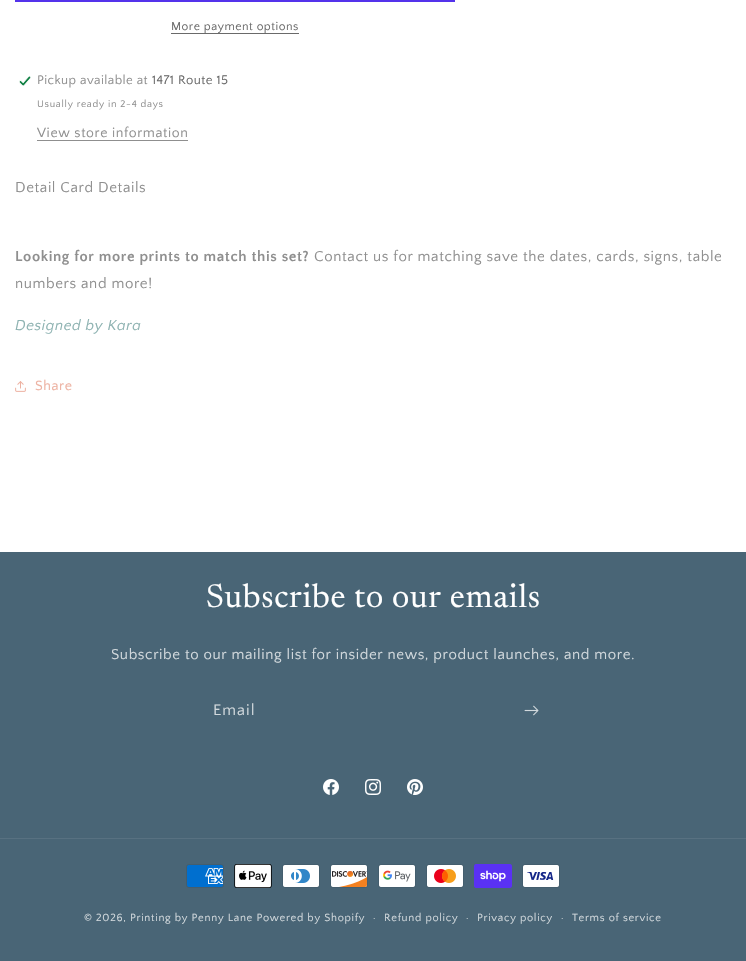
#include "include/core/SkBlurTypes.h"
#include "include/core/SkCanvas.h"
#include "include/core/SkData.h"
#include "include/core/SkFont.h"
#include "include/core/SkFontMgr.h"
#include "include/core/SkImage.h"
#include "include/core/SkMaskFilter.h"
#include "include/core/SkPaint.h"
#include "include/core/SkPathBuilder.h"
#include "include/core/SkTextBlob.h"
#include "include/effects/SkDashPathEffect.h"
#include "include/effects/SkGradientShader.h"
#include "include/utils/SkParsePath.h"

extern sk_sp<SkFontMgr> fontMgr;

static SkFont font(const char* family, int weight, float size, bool italic = false) {
    SkFontStyle style(weight, SkFontStyle::kNormal_Width,
        italic ? SkFontStyle::kItalic_Slant : SkFontStyle::kUpright_Slant);
    SkFont result(fontMgr->matchFamilyStyle(family, style), size);
    result.setSubpixel(true);
    return result;
}

static void drawTracked(SkCanvas* canvas, const char* s, float x, float y, const SkFont& font, const SkPaint& ink, float letter, float word) {
    std::vector<SkGlyphID> glyphs(font.countText(s, strlen(s), SkTextEncoding::kUTF8));
    std::vector<float> xs(glyphs.size());
    font.textToGlyphs(s, strlen(s), SkTextEncoding::kUTF8, glyphs);
    font.getXPos(glyphs, xs, x);
    float extra = 0;
    for (size_t i = 0; i < glyphs.size(); i++) {
        xs[i] += extra;
        extra += letter + word * (glyphs[i] == font.unicharToGlyph(' '));
    }
    canvas->drawTextBlob(SkTextBlob::MakeFromPosHGlyphs(glyphs, xs, y, font), 0, 0, ink);
}

static void fillRect(SkCanvas* canvas, float x, float y, float w, float h, SkColor color) {
    SkPaint ink(SkColor4f::FromColor(color));
    ink.setAntiAlias(true);
    canvas->drawRect(SkRect::MakeXYWH(x, y, w, h), ink);
}

static void drawPhoto(SkCanvas* canvas, const char* path, float x, float y, float w, float h) {
    auto image = SkImages::DeferredFromEncodedData(SkData::MakeFromFileName(path));
    canvas->drawImageRect(image, SkRect::MakeXYWH(x, y, w, h), SkSamplingOptions());
}

void draw(SkCanvas* canvas) {
    SkPaint paint;
    paint.setAntiAlias(true);
    canvas->clear(0xFFFFFFFF);
    fillRect(canvas, 15, 0, 440, 2, 0xFF5433EB);
    fillRect(canvas, 171, 33, 128, 1, 0xFF6A6A6A);
    SkFont font1 = font("Quattrocento Sans", 400, 12);
    paint.setColor(0xFF6A6A6A);
    drawTracked(canvas, "More payment options", 171, 30, font1, paint, 0.5f, 0);
    drawPhoto(canvas, "assets/img1.png", 19, 76, 12, 10);
    SkFont font2 = font("Quattrocento Sans", 400, 13);
    paint.setColor(0xFF8F8F8F);
    drawTracked(canvas, "Pickup available at", 37, 84, font2, paint, 0.4f, 0);
    paint.setColor(0xFF6A6A6A);
    drawTracked(canvas, "1471 Route 15", 152, 84, font2, paint, 0.4f, 0);
    SkFont font3 = font("Quattrocento Sans", 400, 10);
    paint.setColor(0xFF8F8F8F);
    drawTracked(canvas, "Usually ready in 2-4 days", 37, 107, font3, paint, 0.7f, 0);
    SkFont font4 = font("Quattrocento Sans", 400, 14);
    drawTracked(canvas, "View store information", 37, 137, font4, paint, 0.6f, 0);
    fillRect(canvas, 37, 140, 151, 1, 0xFF8F8F8F);
    SkFont font5 = font("Quattrocento Sans", 400, 15);
    drawTracked(canvas, "Detail Card Details", 15, 192, font5, paint, 0.6f, 0);
    SkFont font6 = font("Quattrocento Sans", 700, 15);
    drawTracked(canvas, "Looking for more prints to match this set?", 15, 261, font6, paint, 0.6f, 0);
    drawTracked(canvas, "Contact us for matching save the dates, cards, signs, table", 314, 261, font5, paint, 0.6f, 0);
    drawTracked(canvas, "numbers and more!", 15, 288, font5, paint, 0.6f, 0);
    SkFont font7 = font("Quattrocento Sans", 400, 15, true);
    paint.setColor(0xFF8DB2B1);
    drawTracked(canvas, "Designed by Kara", 15, 330, font7, paint, 0.6f, 0);
    drawPhoto(canvas, "assets/img2.png", 15, 381, 11, 11);
    paint.setColor(0xFFEDB1A1);
    drawTracked(canvas, "Share", 35, 390, font4, paint, 0.6f, 0);
    fillRect(canvas, 0, 552, 746, 409, 0xFF496576);
    SkFont font8 = font("Newsreader", 400, 33);
    paint.setColor(0xFFFFFFFF);
    drawTracked(canvas, "Subscribe to our emails", 206, 607, font8, paint, 0.7f, 0);
    paint.setColor(0xFFD2D9DD);
    drawTracked(canvas, "Subscribe to our mailing list for insider news, product launches, and more.", 111, 659, font5, paint, 0.6f, 0);
    SkFont font9 = font("Quattrocento Sans", 400, 16);
    drawTracked(canvas, "Email", 213, 715, font9, paint, 1, 0);
    drawPhoto(canvas, "assets/img3.png", 524, 705, 15, 11);
    drawPhoto(canvas, "assets/img4.png", 323, 779, 16, 16);
    drawPhoto(canvas, "assets/img5.png", 365, 779, 16, 16);
    drawPhoto(canvas, "assets/img6.png", 407, 779, 16, 16);
    fillRect(canvas, 0, 838, 746, 1, 0xFF587181);
    drawPhoto(canvas, "assets/img7.png", 186, 864, 38, 24);
    drawPhoto(canvas, "assets/img8.png", 234, 864, 38, 24);
    drawPhoto(canvas, "assets/img9.png", 282, 864, 38, 24);
    drawPhoto(canvas, "assets/img10.png", 330, 864, 38, 24);
    drawPhoto(canvas, "assets/img11.png", 378, 864, 38, 24);
    drawPhoto(canvas, "assets/img12.png", 426, 864, 38, 24);
    drawPhoto(canvas, "assets/img13.png", 474, 864, 38, 24);
    drawPhoto(canvas, "assets/img14.png", 522, 864, 38, 24);
    SkFont font10 = font("Quattrocento Sans", 400, 11);
    drawTracked(canvas, "© 2026, Printing by Penny Lane Powered by Shopify", 84, 921, font10, paint, 0.7f, 0);
    drawTracked(canvas, "·", 373, 921, font3, paint, 0.7f, 0);
    drawTracked(canvas, "Refund policy", 384, 921, font10, paint, 0.7f, 0);
    drawTracked(canvas, "·", 466, 921, font3, paint, 0.7f, 0);
    drawTracked(canvas, "Privacy policy", 477, 921, font10, paint, 0.7f, 0);
    drawTracked(canvas, "·", 561, 921, font3, paint, 0.7f, 0);
    drawTracked(canvas, "Terms of service", 572, 921, font10, paint, 0.7f, 0);
}
